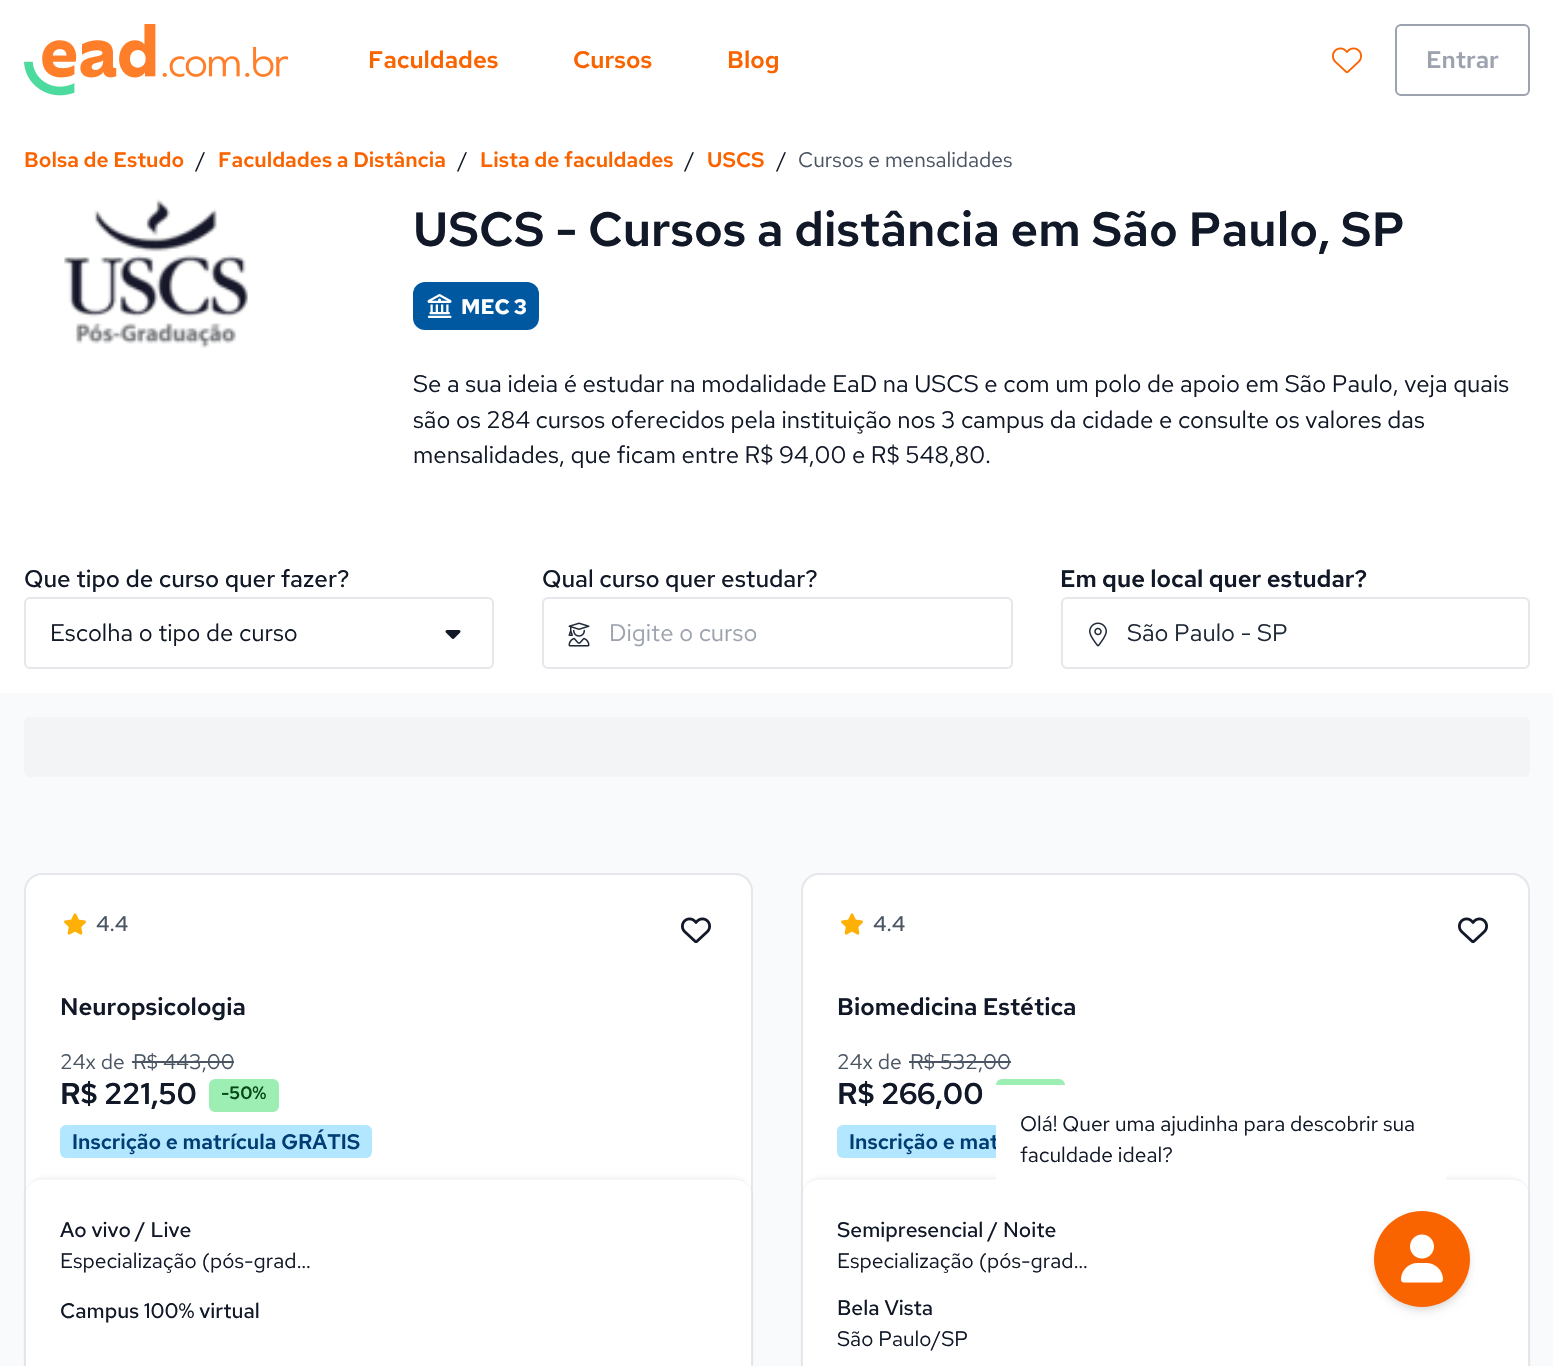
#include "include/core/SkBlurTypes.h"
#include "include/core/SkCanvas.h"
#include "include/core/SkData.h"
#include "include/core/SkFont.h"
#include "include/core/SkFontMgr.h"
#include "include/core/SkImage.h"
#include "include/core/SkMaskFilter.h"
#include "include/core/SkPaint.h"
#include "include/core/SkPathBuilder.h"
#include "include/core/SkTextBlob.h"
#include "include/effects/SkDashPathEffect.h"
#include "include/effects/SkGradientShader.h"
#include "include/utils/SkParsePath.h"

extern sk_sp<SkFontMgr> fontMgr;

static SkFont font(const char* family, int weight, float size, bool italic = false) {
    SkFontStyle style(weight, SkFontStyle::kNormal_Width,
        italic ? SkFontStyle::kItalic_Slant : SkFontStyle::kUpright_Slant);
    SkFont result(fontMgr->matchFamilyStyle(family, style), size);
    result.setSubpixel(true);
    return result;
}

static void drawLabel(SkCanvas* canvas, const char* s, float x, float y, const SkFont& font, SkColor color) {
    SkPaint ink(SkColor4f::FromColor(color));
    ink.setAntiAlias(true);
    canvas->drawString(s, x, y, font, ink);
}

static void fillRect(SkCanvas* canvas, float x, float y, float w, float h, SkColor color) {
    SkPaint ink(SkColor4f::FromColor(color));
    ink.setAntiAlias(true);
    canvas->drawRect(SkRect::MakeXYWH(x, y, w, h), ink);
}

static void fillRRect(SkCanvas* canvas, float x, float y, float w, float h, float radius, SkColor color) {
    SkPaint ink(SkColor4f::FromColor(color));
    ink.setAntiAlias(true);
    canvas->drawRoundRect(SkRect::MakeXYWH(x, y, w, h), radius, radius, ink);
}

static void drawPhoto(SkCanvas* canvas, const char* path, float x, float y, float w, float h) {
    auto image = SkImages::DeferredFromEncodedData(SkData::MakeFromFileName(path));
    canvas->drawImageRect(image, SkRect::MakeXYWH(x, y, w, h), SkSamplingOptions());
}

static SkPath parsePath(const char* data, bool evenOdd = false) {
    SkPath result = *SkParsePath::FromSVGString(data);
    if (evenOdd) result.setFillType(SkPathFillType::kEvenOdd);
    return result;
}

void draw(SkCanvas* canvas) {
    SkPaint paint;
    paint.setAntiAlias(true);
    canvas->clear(0xFFF9FAFB);
    fillRect(canvas, 0, 0, 1553, 693, 0xFFFFFFFF);
    drawPhoto(canvas, "assets/img1.png", 24, 24, 264, 72);
    SkFont font1 = font("Red Hat Text", 600, 24);
    drawLabel(canvas, "Faculdades", 368, 68, font1, 0xFFFA6400);
    drawLabel(canvas, "Cursos", 573, 68, font1, 0xFFFA6400);
    drawLabel(canvas, "Blog", 727, 68, font1, 0xFFFA6400);
    drawPhoto(canvas, "assets/img2.png", 1332, 47, 30, 27);
    paint.setStroke(true);
    paint.setStrokeWidth(2);
    paint.setColor(0xFF9CA3AF);
    canvas->drawRoundRect(SkRect::MakeXYWH(1396, 25, 133, 70), 5, 5, paint);
    drawLabel(canvas, "Entrar", 1426, 68, font1, 0xFF9CA3AF);
    SkFont font2 = font("Red Hat Text", 600, 21);
    drawLabel(canvas, "Bolsa de Estudo", 24, 167, font2, 0xFFFA6400);
    SkFont font3 = font("Red Hat Text", 400, 21);
    drawLabel(canvas, "/", 196, 167, font3, 0xFF111827);
    drawLabel(canvas, "Faculdades a Distância", 218, 167, font2, 0xFFFA6400);
    drawLabel(canvas, "/", 458, 167, font3, 0xFF111827);
    drawLabel(canvas, "Lista de faculdades", 480, 167, font2, 0xFFFA6400);
    drawLabel(canvas, "/", 685, 167, font3, 0xFF111827);
    drawLabel(canvas, "USCS", 707, 167, font2, 0xFFFA6400);
    drawLabel(canvas, "/", 777, 167, font3, 0xFF111827);
    drawLabel(canvas, "Cursos e mensalidades", 798, 167, font3, 0xFF4B5563);
    drawPhoto(canvas, "assets/img3.png", 64, 199, 184, 149);
    SkFont font4 = font("Red Hat Text", 600, 48);
    drawLabel(canvas, "USCS - Cursos a distância em São Paulo, SP", 413, 246, font4, 0xFF111827);
    fillRRect(canvas, 413, 282, 126, 48, 12, 0xFF0058A1);
    drawPhoto(canvas, "assets/img4.png", 427, 294, 25, 24);
    SkFont font5 = font("Red Hat Text", 700, 21);
    drawLabel(canvas, "MEC 3", 461, 314, font5, 0xFFFFFFFF);
    SkFont font6 = font("Red Hat Text", 400, 24);
    drawLabel(canvas, "Se a sua ideia é estudar na modalidade EaD na USCS e com um polo de apoio em São Paulo, veja quais", 413, 392, font6, 0xFF111827);
    drawLabel(canvas, "são os 284 cursos oferecidos pela instituição nos 3 campus da cidade e consulte os valores das", 413, 428, font6, 0xFF111827);
    drawLabel(canvas, "mensalidades, que ficam entre R$ 94,00 e R$ 548,80.", 413, 463, font6, 0xFF111827);
    SkFont font7 = font("Red Hat Text", 500, 24);
    drawLabel(canvas, "Que tipo de curso quer fazer?", 24, 587, font7, 0xFF111827);
    paint.setColor(0xFFE5E7EB);
    canvas->drawRoundRect(SkRect::MakeXYWH(25, 598, 468, 70), 5, 5, paint);
    drawLabel(canvas, "Escolha o tipo de curso", 50, 641, font6, 0xFF111827);
    drawPhoto(canvas, "assets/img5.png", 445, 630, 16, 9);
    drawLabel(canvas, "Qual curso quer estudar?", 542, 587, font7, 0xFF111827);
    canvas->drawRoundRect(SkRect::MakeXYWH(543, 598, 469, 70), 5, 5, paint);
    drawPhoto(canvas, "assets/img6.png", 568, 622, 22, 25);
    drawLabel(canvas, "Digite o curso", 609, 641, font6, 0xFF9CA3AF);
    drawLabel(canvas, "Em que local quer estudar?", 1060, 587, font1, 0xFF111827);
    canvas->drawRoundRect(SkRect::MakeXYWH(1062, 598, 467, 70), 5, 5, paint);
    drawPhoto(canvas, "assets/img7.png", 1089, 622, 18, 25);
    drawLabel(canvas, "São Paulo - SP", 1127, 641, font6, 0xFF1F2937);
    fillRRect(canvas, 24, 717, 1506, 60, 6, 0xFFF3F4F6);
    paint.setStroke(false);
    paint.setColor(0xFFFFFFFF);
    canvas->drawRoundRect(SkRect::MakeXYWH(25, 874, 727, 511), 17, 17, paint);
    paint.setStroke(true);
    paint.setColor(0xFFE5E7EB);
    canvas->drawRoundRect(SkRect::MakeXYWH(25, 874, 727, 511), 17, 17, paint);
    drawPhoto(canvas, "assets/img8.png", 64, 913, 22, 22);
    SkFont font8 = font("Red Hat Text", 500, 21);
    drawLabel(canvas, "4.4", 96, 931, font8, 0xFF4B5563);
    drawPhoto(canvas, "assets/img9.png", 681, 917, 30, 27);
    drawLabel(canvas, "Neuropsicologia", 60, 1015, font1, 0xFF111827);
    drawLabel(canvas, "24x de", 60, 1069, font3, 0xFF4B5563);
    drawLabel(canvas, "R$ 443,00", 133, 1069, font3, 0xFF4B5563);
    fillRect(canvas, 132, 1061, 102, 2, 0xFF4B5563);
    SkFont font9 = font("Red Hat Text", 600, 30);
    drawLabel(canvas, "R$ 221,50", 60, 1104, font9, 0xFF111827);
    fillRRect(canvas, 209, 1079, 70, 33, 6, 0xFF9DEEB2);
    SkFont font10 = font("Red Hat Text", 600, 18);
    drawLabel(canvas, "-50%", 221, 1099, font10, 0xFF054719);
    fillRRect(canvas, 60, 1125, 312, 33, 6, 0xFFB3E6FF);
    drawLabel(canvas, "Inscrição e matrícula GRÁTIS", 72, 1149, font2, 0xFF003D73);
    canvas->save();
    canvas->clipPath(parsePath("M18 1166H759V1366H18ZM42 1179H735C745 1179 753 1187 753 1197V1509C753 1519 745 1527 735 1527H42C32 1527 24 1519 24 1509V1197C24 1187 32 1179 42 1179Z", true), true);
    paint.setStroke(false);
    paint.setColor(0x26121518);
    paint.setMaskFilter(SkMaskFilter::MakeBlur(kNormal_SkBlurStyle, 4.5f));
    canvas->drawRoundRect(SkRect::MakeXYWH(33, 1181, 711, 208), 9, 9, paint);
    paint.setMaskFilter(nullptr);
    canvas->restore();
    paint.setStroke(true);
    paint.setStrokeWidth(0.3f);
    paint.setColor(0xFFD5D9E0);
    canvas->drawRoundRect(SkRect::MakeXYWH(24.15f, 1179.15f, 728.7f, 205.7f), 17.85f, 17.85f, paint);
    drawLabel(canvas, "Ao vivo / Live", 60, 1237, font8, 0xFF111827);
    drawLabel(canvas, "Especialização (pós-grad…", 60, 1268, font3, 0xFF111827);
    drawLabel(canvas, "Campus 100% virtual", 60, 1318, font8, 0xFF111827);
    paint.setStroke(false);
    paint.setColor(0xFFFFFFFF);
    canvas->drawRoundRect(SkRect::MakeXYWH(802, 874, 727, 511), 17, 17, paint);
    paint.setStroke(true);
    paint.setStrokeWidth(2);
    paint.setColor(0xFFE5E7EB);
    canvas->drawRoundRect(SkRect::MakeXYWH(802, 874, 727, 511), 17, 17, paint);
    drawPhoto(canvas, "assets/img8.png", 841, 913, 22, 22);
    drawLabel(canvas, "4.4", 873, 931, font8, 0xFF4B5563);
    drawPhoto(canvas, "assets/img9.png", 1458, 917, 30, 27);
    drawLabel(canvas, "Biomedicina Estética", 837, 1015, font1, 0xFF111827);
    drawLabel(canvas, "24x de", 837, 1069, font3, 0xFF4B5563);
    drawLabel(canvas, "R$ 532,00", 910, 1069, font3, 0xFF4B5563);
    fillRect(canvas, 909, 1061, 102, 2, 0xFF4B5563);
    drawLabel(canvas, "R$ 266,00", 837, 1104, font9, 0xFF111827);
    fillRRect(canvas, 996, 1079, 69, 33, 6, 0xFF9DEEB2);
    fillRRect(canvas, 837, 1125, 312, 33, 6, 0xFFB3E6FF);
    drawLabel(canvas, "Inscrição e mat", 849, 1149, font2, 0xFF003D73);
    canvas->save();
    canvas->clipPath(parsePath("M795 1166H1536V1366H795ZM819 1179H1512C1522 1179 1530 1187 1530 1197V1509C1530 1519 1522 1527 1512 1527H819C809 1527 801 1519 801 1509V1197C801 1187 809 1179 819 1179Z", true), true);
    paint.setStroke(false);
    paint.setColor(0x26121518);
    paint.setMaskFilter(SkMaskFilter::MakeBlur(kNormal_SkBlurStyle, 4.5f));
    canvas->drawRoundRect(SkRect::MakeXYWH(810, 1181, 711, 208), 9, 9, paint);
    paint.setMaskFilter(nullptr);
    canvas->restore();
    paint.setStroke(true);
    paint.setStrokeWidth(0.3f);
    paint.setColor(0xFFD5D9E0);
    canvas->drawRoundRect(SkRect::MakeXYWH(801.15f, 1179.15f, 728.7f, 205.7f), 17.85f, 17.85f, paint);
    drawLabel(canvas, "Semipresencial / Noite", 837, 1237, font8, 0xFF111827);
    drawLabel(canvas, "Especialização (pós-grad…", 837, 1268, font3, 0xFF111827);
    drawLabel(canvas, "Bela Vista", 837, 1315, font8, 0xFF111827);
    drawLabel(canvas, "São Paulo/SP", 837, 1346, font3, 0xFF111827);
    fillRect(canvas, 996, 1085, 450, 95, 0xFFFFFFFF);
    drawLabel(canvas, "Olá! Quer uma ajudinha para descobrir sua", 1020, 1131, font3, 0xFF111827);
    drawLabel(canvas, "faculdade ideal?", 1020, 1162, font3, 0xFF111827);
    paint.setStroke(false);
    paint.setColor(0x1A000000);
    paint.setMaskFilter(SkMaskFilter::MakeBlur(kNormal_SkBlurStyle, 3));
    canvas->drawRoundRect(SkRect::MakeXYWH(1377, 1217, 90, 90), 45, 45, paint);
    paint.setMaskFilter(nullptr);
    paint.setMaskFilter(SkMaskFilter::MakeBlur(kNormal_SkBlurStyle, 4.5f));
    canvas->drawRoundRect(SkRect::MakeXYWH(1376, 1218, 93, 93), 46.5f, 46.5f, paint);
    paint.setMaskFilter(nullptr);
    paint.setColor(0xFFFA6400);
    canvas->drawCircle(1422, 1259, 48, paint);
    drawPhoto(canvas, "assets/img10.png", 1401, 1234, 42, 49);
}
